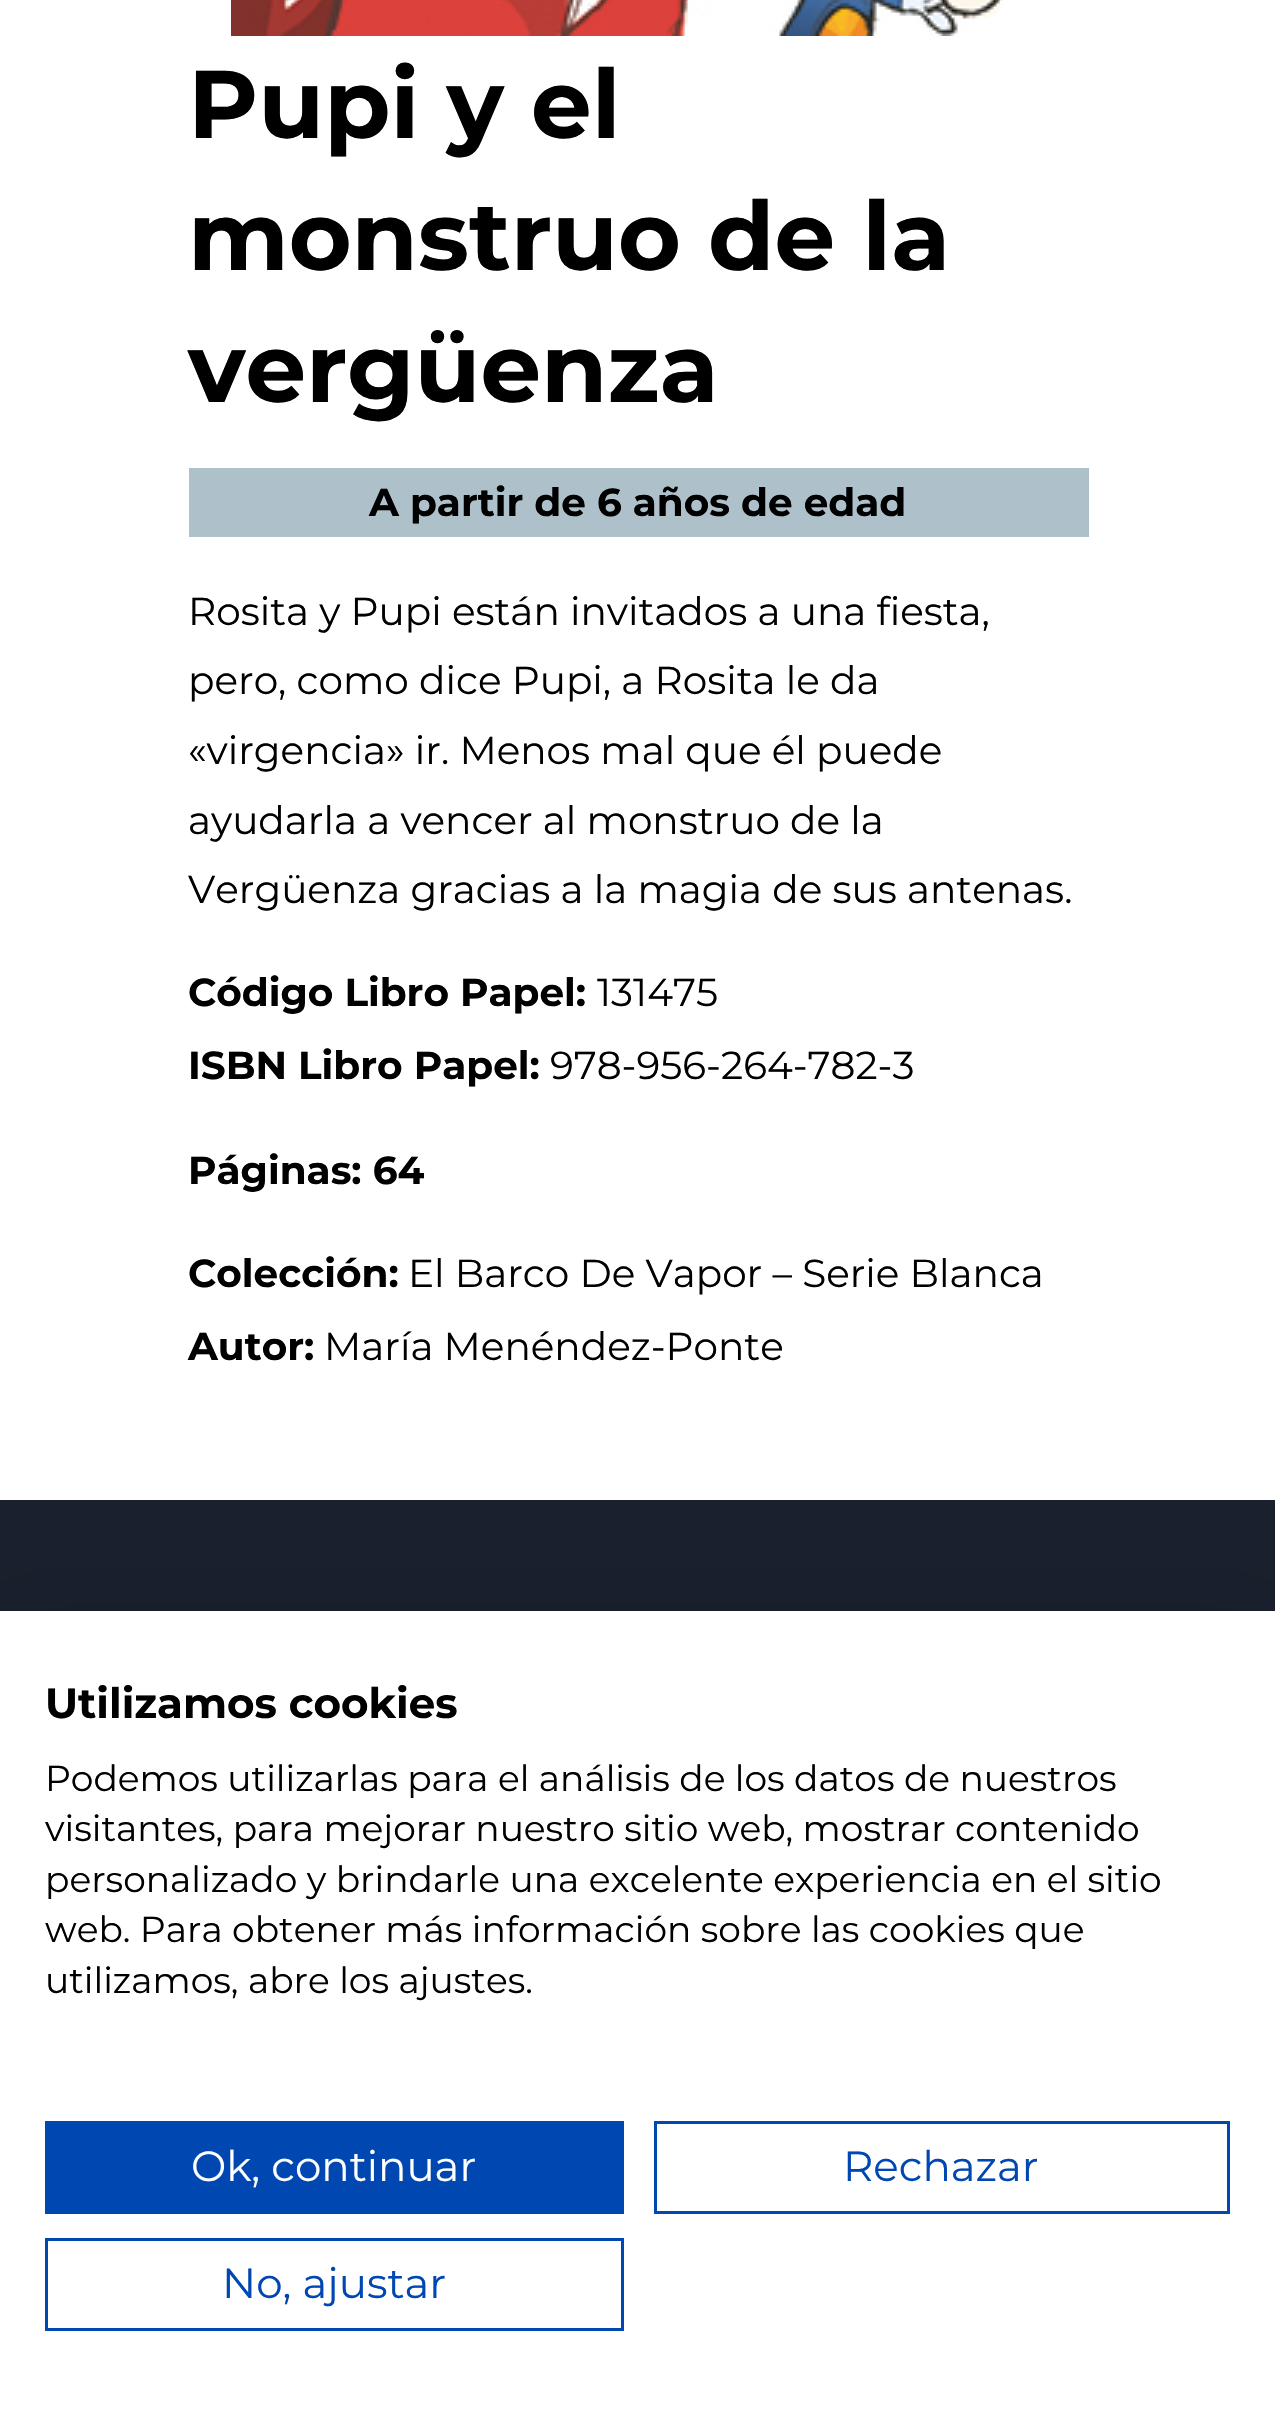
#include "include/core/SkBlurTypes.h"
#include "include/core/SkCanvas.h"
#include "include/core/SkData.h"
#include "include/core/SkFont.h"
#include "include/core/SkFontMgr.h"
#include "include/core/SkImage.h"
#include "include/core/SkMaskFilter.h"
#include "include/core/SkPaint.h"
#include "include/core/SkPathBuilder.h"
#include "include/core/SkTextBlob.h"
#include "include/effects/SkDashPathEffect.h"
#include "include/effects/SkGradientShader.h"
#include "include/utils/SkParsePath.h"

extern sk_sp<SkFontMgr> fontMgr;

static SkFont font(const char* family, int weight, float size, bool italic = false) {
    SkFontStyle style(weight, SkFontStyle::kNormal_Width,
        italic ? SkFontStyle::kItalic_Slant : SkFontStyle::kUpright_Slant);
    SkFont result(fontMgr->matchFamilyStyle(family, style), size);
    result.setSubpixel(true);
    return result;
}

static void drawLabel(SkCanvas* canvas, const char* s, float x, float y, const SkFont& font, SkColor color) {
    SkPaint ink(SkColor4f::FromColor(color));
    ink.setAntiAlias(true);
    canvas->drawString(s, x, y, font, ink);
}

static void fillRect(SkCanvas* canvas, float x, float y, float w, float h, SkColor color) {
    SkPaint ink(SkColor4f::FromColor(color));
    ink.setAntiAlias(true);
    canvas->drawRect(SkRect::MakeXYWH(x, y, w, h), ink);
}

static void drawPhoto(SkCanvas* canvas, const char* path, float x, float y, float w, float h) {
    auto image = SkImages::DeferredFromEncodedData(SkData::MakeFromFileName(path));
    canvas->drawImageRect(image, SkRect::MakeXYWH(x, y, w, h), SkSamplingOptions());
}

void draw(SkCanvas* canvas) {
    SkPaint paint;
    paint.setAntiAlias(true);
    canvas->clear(0xFFFFFFFF);
    drawPhoto(canvas, "assets/img1.png", 231, 0, 772, 36);
    SkFont font1 = font("Montserrat", 700, 96);
    drawLabel(canvas, "Pupi y el", 188, 138, font1, 0xFF000000);
    drawLabel(canvas, "monstruo de la", 188, 270, font1, 0xFF000000);
    drawLabel(canvas, "vergüenza", 188, 402, font1, 0xFF000000);
    fillRect(canvas, 189, 468, 900, 69, 0xFFAEC0CA);
    SkFont font2 = font("Montserrat", 700, 39);
    drawLabel(canvas, "A partir de 6 años de edad", 369, 516, font2, 0xFF000000);
    SkFont font3 = font("Montserrat", 400, 39);
    drawLabel(canvas, "Rosita y Pupi están invitados a una fiesta,", 188, 625, font3, 0xFF000000);
    drawLabel(canvas, "pero, como dice Pupi, a Rosita le da", 188, 694, font3, 0xFF000000);
    drawLabel(canvas, "«virgencia» ir. Menos mal que él puede", 188, 764, font3, 0xFF000000);
    drawLabel(canvas, "ayudarla a vencer al monstruo de la", 188, 834, font3, 0xFF000000);
    drawLabel(canvas, "Vergüenza gracias a la magia de sus antenas.", 188, 903, font3, 0xFF000000);
    drawLabel(canvas, "Código Libro Papel:", 188, 1006, font2, 0xFF000000);
    drawLabel(canvas, "131475", 597, 1006, font3, 0xFF000000);
    drawLabel(canvas, "ISBN Libro Papel:", 188, 1079, font2, 0xFF000000);
    drawLabel(canvas, "978-956-264-782-3", 550, 1079, font3, 0xFF000000);
    drawLabel(canvas, "Páginas: 64", 188, 1184, font2, 0xFF000000);
    drawLabel(canvas, "Colección:", 188, 1287, font2, 0xFF000000);
    drawLabel(canvas, "El Barco De Vapor – Serie Blanca", 408, 1287, font3, 0xFF000000);
    drawLabel(canvas, "Autor:", 188, 1360, font2, 0xFF000000);
    drawLabel(canvas, "María Menéndez-Ponte", 324, 1360, font3, 0xFF000000);
    fillRect(canvas, 0, 1500, 1275, 111, 0xFF1A202D);
    paint.setColor(0x1A000000);
    paint.setMaskFilter(SkMaskFilter::MakeBlur(kNormal_SkBlurStyle, 36));
    canvas->drawRect(SkRect::MakeXYWH(0, 1611, 1275, 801), paint);
    paint.setMaskFilter(nullptr);
    fillRect(canvas, 0, 1611, 1275, 800, 0xFFFFFFFF);
    SkFont font4 = font("Montserrat", 700, 42);
    drawLabel(canvas, "Utilizamos cookies", 45, 1718, font4, 0xFF000000);
    SkFont font5 = font("Montserrat", 400, 36);
    drawLabel(canvas, "Podemos utilizarlas para el análisis de los datos de nuestros", 45, 1791, font5, 0xFF000000);
    drawLabel(canvas, "visitantes, para mejorar nuestro sitio web, mostrar contenido", 45, 1841, font5, 0xFF000000);
    drawLabel(canvas, "personalizado y brindarle una excelente experiencia en el sitio", 45, 1892, font5, 0xFF000000);
    drawLabel(canvas, "web. Para obtener más información sobre las cookies que", 45, 1942, font5, 0xFF000000);
    drawLabel(canvas, "utilizamos, abre los ajustes.", 45, 1993, font5, 0xFF000000);
    fillRect(canvas, 45, 2121, 579, 93, 0xFF0047B2);
    SkFont font6 = font("Montserrat", 400, 42);
    drawLabel(canvas, "Ok, continuar", 191, 2181, font6, 0xFFFFFFFF);
    paint.setStroke(true);
    paint.setStrokeWidth(3);
    paint.setColor(0xFF0047B2);
    canvas->drawRect(SkRect::MakeXYWH(655.5f, 2122.5f, 573, 90), paint);
    drawLabel(canvas, "Rechazar", 843, 2181, font6, 0xFF0047B2);
    canvas->drawRect(SkRect::MakeXYWH(46.5f, 2239.5f, 576, 90), paint);
    drawLabel(canvas, "No, ajustar", 222, 2298, font6, 0xFF0047B2);
}
